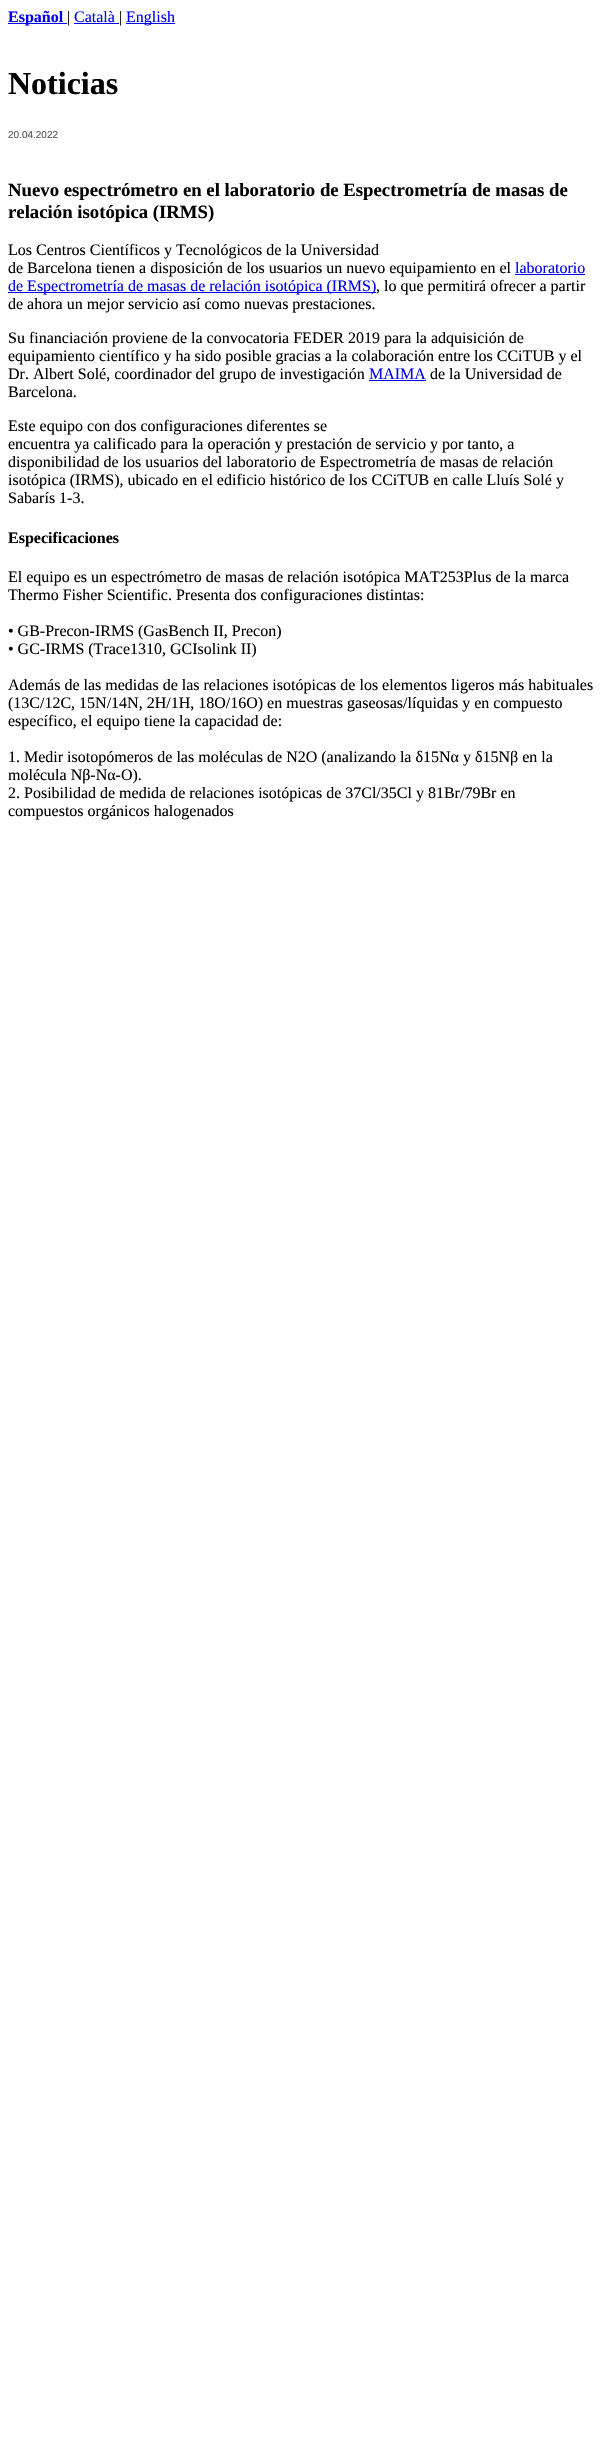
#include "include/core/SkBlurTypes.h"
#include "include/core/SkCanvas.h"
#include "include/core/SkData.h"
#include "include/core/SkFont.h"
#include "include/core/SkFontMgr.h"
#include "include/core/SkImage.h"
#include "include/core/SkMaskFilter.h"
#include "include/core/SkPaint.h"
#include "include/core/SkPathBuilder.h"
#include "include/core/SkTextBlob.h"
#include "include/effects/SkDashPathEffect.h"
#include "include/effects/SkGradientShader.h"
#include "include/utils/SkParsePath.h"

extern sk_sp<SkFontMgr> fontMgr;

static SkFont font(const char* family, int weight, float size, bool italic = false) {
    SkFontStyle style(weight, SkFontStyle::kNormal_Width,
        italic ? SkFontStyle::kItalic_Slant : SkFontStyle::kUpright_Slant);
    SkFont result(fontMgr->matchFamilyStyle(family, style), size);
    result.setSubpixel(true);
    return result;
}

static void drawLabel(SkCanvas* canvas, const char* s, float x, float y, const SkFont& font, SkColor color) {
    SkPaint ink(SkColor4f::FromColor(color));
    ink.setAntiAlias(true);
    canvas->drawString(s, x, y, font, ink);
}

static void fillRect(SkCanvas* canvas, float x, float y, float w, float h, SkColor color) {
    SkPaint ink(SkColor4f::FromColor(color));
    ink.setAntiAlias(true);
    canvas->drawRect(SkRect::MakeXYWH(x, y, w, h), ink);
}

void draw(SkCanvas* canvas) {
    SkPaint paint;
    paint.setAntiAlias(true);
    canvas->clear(0xFFFFFFFF);
    fillRect(canvas, 8, 23, 59, 1, 0xFF0000EE);
    SkFont font1 = font("Liberation Serif", 700, 16);
    drawLabel(canvas, "Español", 8, 22, font1, 0xFF0000EE);
    SkFont font2 = font("Liberation Serif", 400, 16);
    drawLabel(canvas, "|", 67, 22, font2, 0xFF000000);
    drawLabel(canvas, "Català", 74, 22, font2, 0xFF0000EE);
    fillRect(canvas, 74, 23, 45, 1, 0xFF0000EE);
    drawLabel(canvas, "|", 119, 22, font2, 0xFF000000);
    fillRect(canvas, 126, 23, 49, 1, 0xFF0000EE);
    drawLabel(canvas, "English", 126, 22, font2, 0xFF0000EE);
    SkFont font3 = font("Liberation Serif", 700, 32);
    drawLabel(canvas, "Noticias", 8, 94, font3, 0xFF000000);
    SkFont font4 = font("Liberation Sans", 400, 10);
    drawLabel(canvas, "20.04.2022", 8, 138, font4, 0xFF535353);
    SkFont font5 = font("Liberation Serif", 700, 18.75f);
    drawLabel(canvas, "Nuevo espectrómetro en el laboratorio de Espectrometría de masas de", 8, 196, font5, 0xFF000000);
    drawLabel(canvas, "relación isotópica (IRMS)", 8, 218, font5, 0xFF000000);
    drawLabel(canvas, "Los Centros Científicos y Tecnológicos de la Universidad", 8, 255, font2, 0xFF000000);
    drawLabel(canvas, "de Barcelona tienen a disposición de los usuarios un nuevo equipamiento en el", 8, 273, font2, 0xFF000000);
    drawLabel(canvas, "laboratorio", 515, 273, font2, 0xFF0000EE);
    fillRect(canvas, 515, 274, 70, 1, 0xFF0000EE);
    fillRect(canvas, 8, 292, 368, 1, 0xFF0000EE);
    drawLabel(canvas, "de Espectrometría de masas de relación isotópica (IRMS)", 8, 291, font2, 0xFF0000EE);
    drawLabel(canvas, ", lo que permitirá ofrecer a partir", 376, 291, font2, 0xFF000000);
    drawLabel(canvas, "de ahora un mejor servicio así como nuevas prestaciones.", 8, 309, font2, 0xFF000000);
    drawLabel(canvas, "Su financiación proviene de la convocatoria FEDER 2019 para la adquisición de", 8, 343, font2, 0xFF000000);
    drawLabel(canvas, "equipamiento científico y ha sido posible gracias a la colaboración entre los CCiTUB y el", 8, 361, font2, 0xFF000000);
    drawLabel(canvas, "Dr. Albert Solé, coordinador del grupo de investigación", 8, 379, font2, 0xFF000000);
    drawLabel(canvas, "MAIMA", 369, 379, font2, 0xFF0000EE);
    fillRect(canvas, 369, 380, 57, 1, 0xFF0000EE);
    drawLabel(canvas, "de la Universidad de", 430, 379, font2, 0xFF000000);
    drawLabel(canvas, "Barcelona.", 8, 397, font2, 0xFF000000);
    drawLabel(canvas, "Este equipo con dos configuraciones diferentes se", 8, 431, font2, 0xFF000000);
    drawLabel(canvas, "encuentra ya calificado para la operación y prestación de servicio y por tanto, a", 8, 449, font2, 0xFF000000);
    drawLabel(canvas, "disponibilidad de los usuarios del laboratorio de Espectrometría de masas de relación", 8, 467, font2, 0xFF000000);
    drawLabel(canvas, "isotópica (IRMS), ubicado en el edificio histórico de los CCiTUB en calle Lluís Solé y", 8, 485, font2, 0xFF000000);
    drawLabel(canvas, "Sabarís 1-3.", 8, 503, font2, 0xFF000000);
    drawLabel(canvas, "Especificaciones", 8, 543, font1, 0xFF000000);
    drawLabel(canvas, "El equipo es un espectrómetro de masas de relación isotópica MAT253Plus de la marca", 8, 582, font2, 0xFF000000);
    drawLabel(canvas, "Thermo Fisher Scientific. Presenta dos configuraciones distintas:", 8, 600, font2, 0xFF000000);
    drawLabel(canvas, "• GB-Precon-IRMS (GasBench II, Precon)", 8, 636, font2, 0xFF000000);
    drawLabel(canvas, "• GC-IRMS (Trace1310, GCIsolink II)", 8, 654, font2, 0xFF000000);
    drawLabel(canvas, "Además de las medidas de las relaciones isotópicas de los elementos ligeros más habituales", 8, 690, font2, 0xFF000000);
    drawLabel(canvas, "(13C/12C, 15N/14N, 2H/1H, 18O/16O) en muestras gaseosas/líquidas y en compuesto", 8, 708, font2, 0xFF000000);
    drawLabel(canvas, "específico, el equipo tiene la capacidad de:", 8, 726, font2, 0xFF000000);
    drawLabel(canvas, "1. Medir isotopómeros de las moléculas de N2O (analizando la δ15Nα y δ15Nβ en la", 8, 762, font2, 0xFF000000);
    drawLabel(canvas, "molécula Nβ-Nα-O).", 8, 780, font2, 0xFF000000);
    drawLabel(canvas, "2. Posibilidad de medida de relaciones isotópicas de 37Cl/35Cl y 81Br/79Br en", 8, 798, font2, 0xFF000000);
    drawLabel(canvas, "compuestos orgánicos halogenados", 8, 816, font2, 0xFF000000);
}
